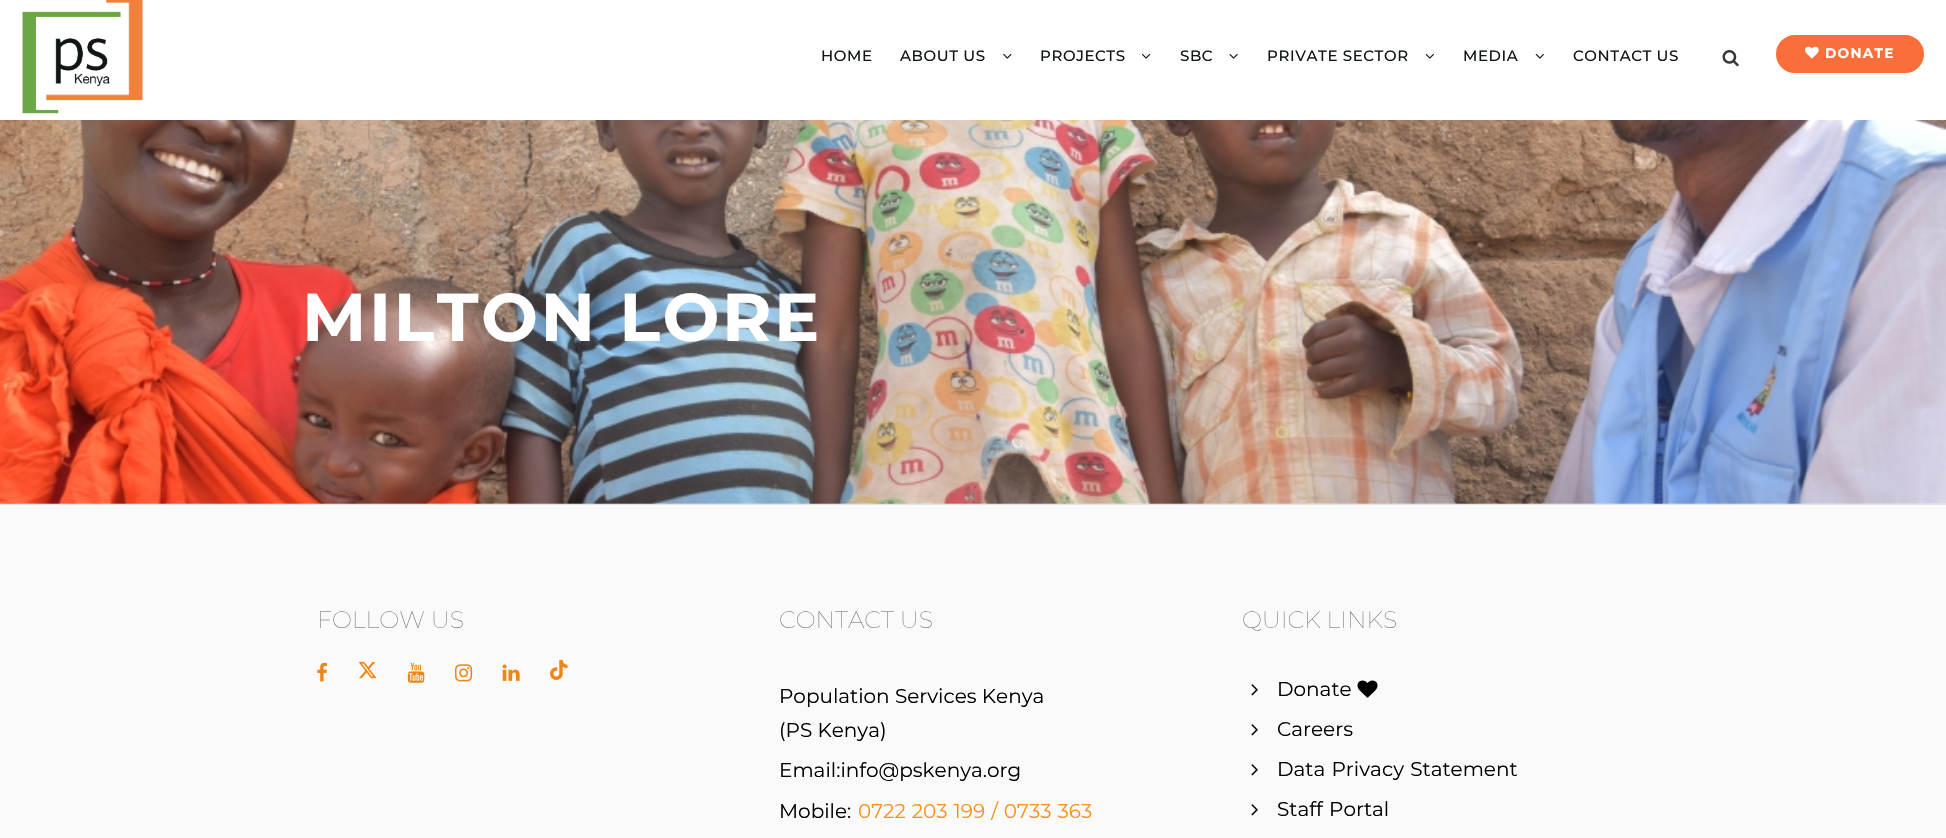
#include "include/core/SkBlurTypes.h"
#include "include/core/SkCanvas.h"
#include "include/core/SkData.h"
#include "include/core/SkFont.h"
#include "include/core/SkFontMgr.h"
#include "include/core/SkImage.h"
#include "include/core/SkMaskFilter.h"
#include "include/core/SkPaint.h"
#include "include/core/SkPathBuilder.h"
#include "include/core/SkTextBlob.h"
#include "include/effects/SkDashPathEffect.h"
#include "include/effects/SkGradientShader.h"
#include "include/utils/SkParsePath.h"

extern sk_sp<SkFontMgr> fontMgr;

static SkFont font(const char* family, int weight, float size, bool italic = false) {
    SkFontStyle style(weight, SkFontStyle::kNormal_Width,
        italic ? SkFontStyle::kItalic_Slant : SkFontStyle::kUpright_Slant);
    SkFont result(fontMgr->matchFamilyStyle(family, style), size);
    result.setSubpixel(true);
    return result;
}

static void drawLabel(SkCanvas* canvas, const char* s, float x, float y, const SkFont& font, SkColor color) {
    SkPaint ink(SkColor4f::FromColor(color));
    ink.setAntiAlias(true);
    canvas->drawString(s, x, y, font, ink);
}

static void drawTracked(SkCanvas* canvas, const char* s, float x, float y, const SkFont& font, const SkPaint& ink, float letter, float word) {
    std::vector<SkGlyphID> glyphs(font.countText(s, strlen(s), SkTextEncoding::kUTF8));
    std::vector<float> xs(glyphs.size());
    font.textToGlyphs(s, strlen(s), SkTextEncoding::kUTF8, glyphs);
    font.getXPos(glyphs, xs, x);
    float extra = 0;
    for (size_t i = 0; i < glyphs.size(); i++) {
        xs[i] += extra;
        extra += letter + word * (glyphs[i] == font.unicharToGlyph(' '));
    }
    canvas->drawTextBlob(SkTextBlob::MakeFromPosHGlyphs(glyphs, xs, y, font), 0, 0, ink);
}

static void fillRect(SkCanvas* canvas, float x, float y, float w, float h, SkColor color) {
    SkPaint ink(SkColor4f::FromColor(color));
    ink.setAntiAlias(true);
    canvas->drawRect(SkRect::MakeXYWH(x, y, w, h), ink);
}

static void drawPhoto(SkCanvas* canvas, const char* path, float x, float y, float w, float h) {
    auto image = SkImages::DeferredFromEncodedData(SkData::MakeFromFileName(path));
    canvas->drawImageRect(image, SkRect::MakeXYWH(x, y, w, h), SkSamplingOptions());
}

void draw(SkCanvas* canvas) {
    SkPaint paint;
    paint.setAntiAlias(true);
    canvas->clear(0xFFFFFFFF);
    drawPhoto(canvas, "assets/img1.png", 22, 0, 121, 114);
    SkFont font1 = font("Montserrat", 500, 15);
    paint.setColor(0xFF111617);
    drawTracked(canvas, "HOME", 821, 61, font1, paint, 0.6f, 0);
    drawTracked(canvas, "ABOUT US", 900, 61, font1, paint, 0.6f, 0);
    drawPhoto(canvas, "assets/img2.png", 1003, 53, 9, 6);
    drawTracked(canvas, "PROJECTS", 1040, 61, font1, paint, 0.6f, 0);
    drawPhoto(canvas, "assets/img3.png", 1141, 53, 10, 6);
    drawTracked(canvas, "SBC", 1180, 61, font1, paint, 0.6f, 0);
    drawPhoto(canvas, "assets/img4.png", 1229, 53, 9, 6);
    drawTracked(canvas, "PRIVATE SECTOR", 1267, 61, font1, paint, 0.6f, 0);
    drawPhoto(canvas, "assets/img5.png", 1425, 53, 9, 6);
    drawTracked(canvas, "MEDIA", 1463, 61, font1, paint, 0.6f, 0);
    drawPhoto(canvas, "assets/img5.png", 1535, 53, 9, 6);
    drawTracked(canvas, "CONTACT US", 1573, 61, font1, paint, 0.6f, 0);
    drawPhoto(canvas, "assets/img6.png", 1722, 50, 17, 17);
    paint.setColor(0xFFFA6E39);
    canvas->drawRoundRect(SkRect::MakeXYWH(1777.5f, 36.5f, 145, 35), 17.5f, 17.5f, paint);
    paint.setStroke(true);
    paint.setStrokeWidth(3);
    canvas->drawRoundRect(SkRect::MakeXYWH(1777.5f, 36.5f, 145, 35), 17.5f, 17.5f, paint);
    drawPhoto(canvas, "assets/img7.png", 1805, 46, 14, 13);
    SkFont font2 = font("Montserrat", 700, 13.75f);
    paint.setStroke(false);
    paint.setColor(0xFFFFFFFF);
    drawTracked(canvas, "DONATE", 1825, 58, font2, paint, 1.25f, 0);
    drawPhoto(canvas, "assets/img8.png", 0, 120, 1946, 384);
    SkFont font3 = font("Montserrat", 700, 67.5f);
    drawTracked(canvas, "MILTON LORE", 302, 341, font3, paint, 2.5f, 0);
    fillRect(canvas, 0, 504, 1946, 1, 0xFFE2E2E2);
    fillRect(canvas, 0, 505, 1946, 333, 0xFFFAFAFA);
    SkFont font4 = font("Montserrat", 100, 23.75f);
    drawLabel(canvas, "FOLLOW US", 317, 628, font4, 0xFF6B7073);
    drawPhoto(canvas, "assets/img9.png", 317, 662, 10, 20);
    drawPhoto(canvas, "assets/img10.png", 358, 661, 19, 18);
    drawPhoto(canvas, "assets/img11.png", 407, 662, 18, 21);
    drawPhoto(canvas, "assets/img12.png", 455, 664, 18, 18);
    drawPhoto(canvas, "assets/img13.png", 502, 664, 18, 17);
    drawPhoto(canvas, "assets/img14.png", 550, 660, 18, 20);
    drawLabel(canvas, "CONTACT US", 779, 628, font4, 0xFF6B7073);
    SkFont font5 = font("Montserrat", 400, 20);
    drawLabel(canvas, "Population Services Kenya", 779, 703, font5, 0xFF000000);
    drawLabel(canvas, "(PS Kenya)", 779, 737, font5, 0xFF000000);
    drawLabel(canvas, "Email:info@pskenya.org", 779, 777, font5, 0xFF000000);
    drawLabel(canvas, "Mobile:", 779, 818, font5, 0xFF000000);
    paint.setColor(0xFFF7931D);
    drawTracked(canvas, "0722 203 199 / 0733 363", 858, 818, font5, paint, 0, 0.75f);
    drawLabel(canvas, "QUICK LINKS", 1242, 628, font4, 0xFF6B7073);
    drawPhoto(canvas, "assets/img15.png", 1251, 684, 7, 12);
    drawLabel(canvas, "Donate", 1277, 696, font5, 0xFF000000);
    drawPhoto(canvas, "assets/img16.png", 1357, 680, 21, 18);
    drawPhoto(canvas, "assets/img15.png", 1251, 724, 7, 12);
    drawLabel(canvas, "Careers", 1277, 736, font5, 0xFF000000);
    drawPhoto(canvas, "assets/img15.png", 1251, 764, 7, 12);
    paint.setColor(0xFF000000);
    drawTracked(canvas, "Data Privacy Statement", 1277, 776, font5, paint, 0, 1);
    drawPhoto(canvas, "assets/img15.png", 1251, 804, 7, 12);
    drawTracked(canvas, "Staff Portal", 1277, 816, font5, paint, 0, 1);
}
